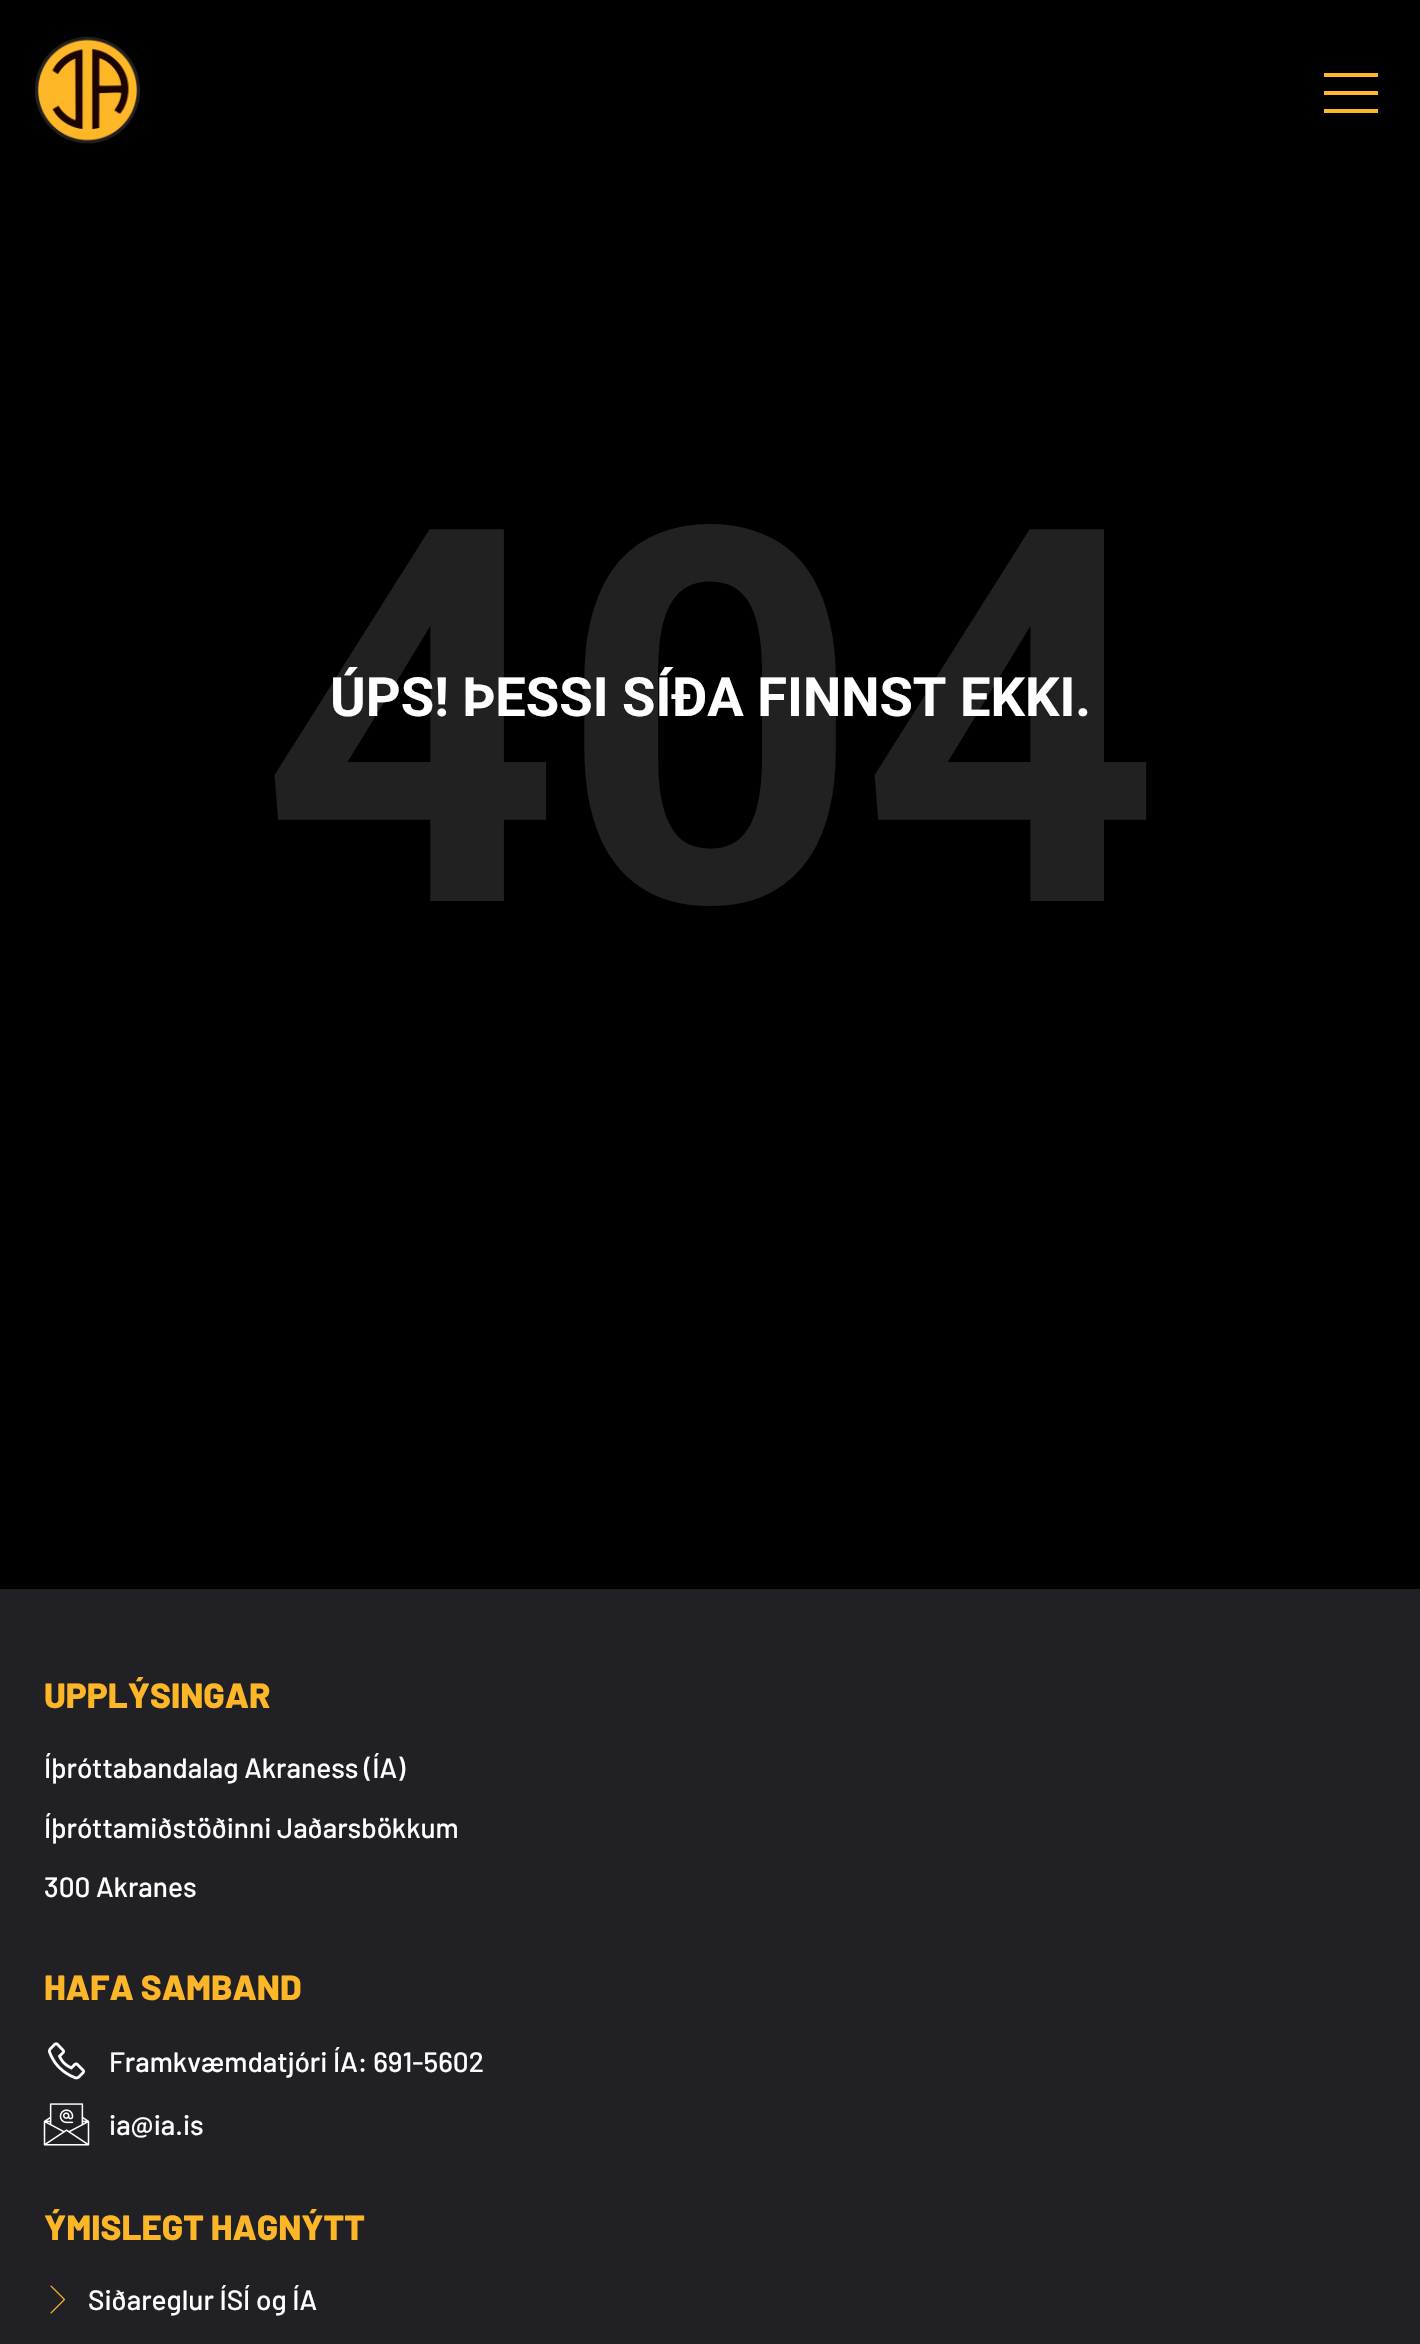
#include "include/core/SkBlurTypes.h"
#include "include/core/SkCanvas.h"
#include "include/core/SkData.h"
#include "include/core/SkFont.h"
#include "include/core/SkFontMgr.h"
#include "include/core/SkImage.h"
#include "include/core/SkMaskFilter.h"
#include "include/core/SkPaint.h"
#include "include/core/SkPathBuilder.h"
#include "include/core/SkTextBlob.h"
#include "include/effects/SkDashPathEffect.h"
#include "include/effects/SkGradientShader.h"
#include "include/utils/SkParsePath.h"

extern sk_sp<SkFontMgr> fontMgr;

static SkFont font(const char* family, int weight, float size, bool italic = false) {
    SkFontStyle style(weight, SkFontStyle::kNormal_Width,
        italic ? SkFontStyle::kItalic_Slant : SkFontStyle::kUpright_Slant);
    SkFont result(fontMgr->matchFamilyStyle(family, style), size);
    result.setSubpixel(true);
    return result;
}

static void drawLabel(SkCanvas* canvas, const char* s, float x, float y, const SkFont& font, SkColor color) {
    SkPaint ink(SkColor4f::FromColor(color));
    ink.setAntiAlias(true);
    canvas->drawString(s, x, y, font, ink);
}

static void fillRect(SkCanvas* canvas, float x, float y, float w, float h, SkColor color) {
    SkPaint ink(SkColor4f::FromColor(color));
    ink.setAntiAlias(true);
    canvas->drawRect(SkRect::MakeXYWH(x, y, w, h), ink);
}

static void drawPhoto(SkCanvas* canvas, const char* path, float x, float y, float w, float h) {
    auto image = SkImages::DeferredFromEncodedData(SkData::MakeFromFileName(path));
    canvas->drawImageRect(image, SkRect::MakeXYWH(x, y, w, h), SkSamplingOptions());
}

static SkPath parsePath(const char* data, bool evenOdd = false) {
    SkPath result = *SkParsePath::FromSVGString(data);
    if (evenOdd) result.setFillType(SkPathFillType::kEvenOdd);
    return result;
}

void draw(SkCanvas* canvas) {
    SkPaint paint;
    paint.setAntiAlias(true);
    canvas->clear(0xFF000000);
    drawPhoto(canvas, "assets/img1.png", 35, 36, 105, 108);
    paint.setColor(0xFFFEB727);
    canvas->drawPath(parsePath("M1324 73V77H1378V73ZM1324 91V95H1378V91ZM1324 109V113H1378V109Z"), paint);
    SkFont font1 = font("Roboto", 700, 523);
    drawLabel(canvas, "404", 260, 901, font1, 0xFF212121);
    SkFont font2 = font("Roboto", 700, 54.25f);
    drawLabel(canvas, "ÚPS! ÞESSI SÍÐA FINNST EKKI.", 330, 716, font2, 0xFFFFFFFF);
    fillRect(canvas, 0, 1589, 1420, 755, 0xFF212125);
    SkFont font3 = font("Barlow", 800, 35);
    drawLabel(canvas, "UPPLÝSINGAR", 44, 1708, font3, 0xFFFDB627);
    SkFont font4 = font("Barlow", 500, 28);
    drawLabel(canvas, "Íþróttabandalag Akraness (ÍA)", 44, 1778, font4, 0xFFFFFFFF);
    drawLabel(canvas, "Íþróttamiðstöðinni Jaðarsbökkum", 44, 1838, font4, 0xFFFFFFFF);
    drawLabel(canvas, "300 Akranes", 44, 1897, font4, 0xFFFFFFFF);
    drawLabel(canvas, "HAFA SAMBAND", 44, 2000, font3, 0xFFFDB627);
    drawPhoto(canvas, "assets/img2.png", 48, 2042, 37, 38);
    drawLabel(canvas, "Framkvæmdatjóri ÍA: 691-5602", 109, 2072, font4, 0xFFFFFFFF);
    drawPhoto(canvas, "assets/img3.png", 43, 2103, 47, 43);
    drawLabel(canvas, "ia@ia.is", 109, 2135, font4, 0xFFFFFFFF);
    drawLabel(canvas, "ÝMISLEGT HAGNÝTT", 44, 2240, font3, 0xFFFDB627);
    drawPhoto(canvas, "assets/img4.png", 50, 2285, 15, 29);
    drawLabel(canvas, "Siðareglur ÍSÍ og ÍA", 88, 2310, font4, 0xFFFFFFFF);
}
